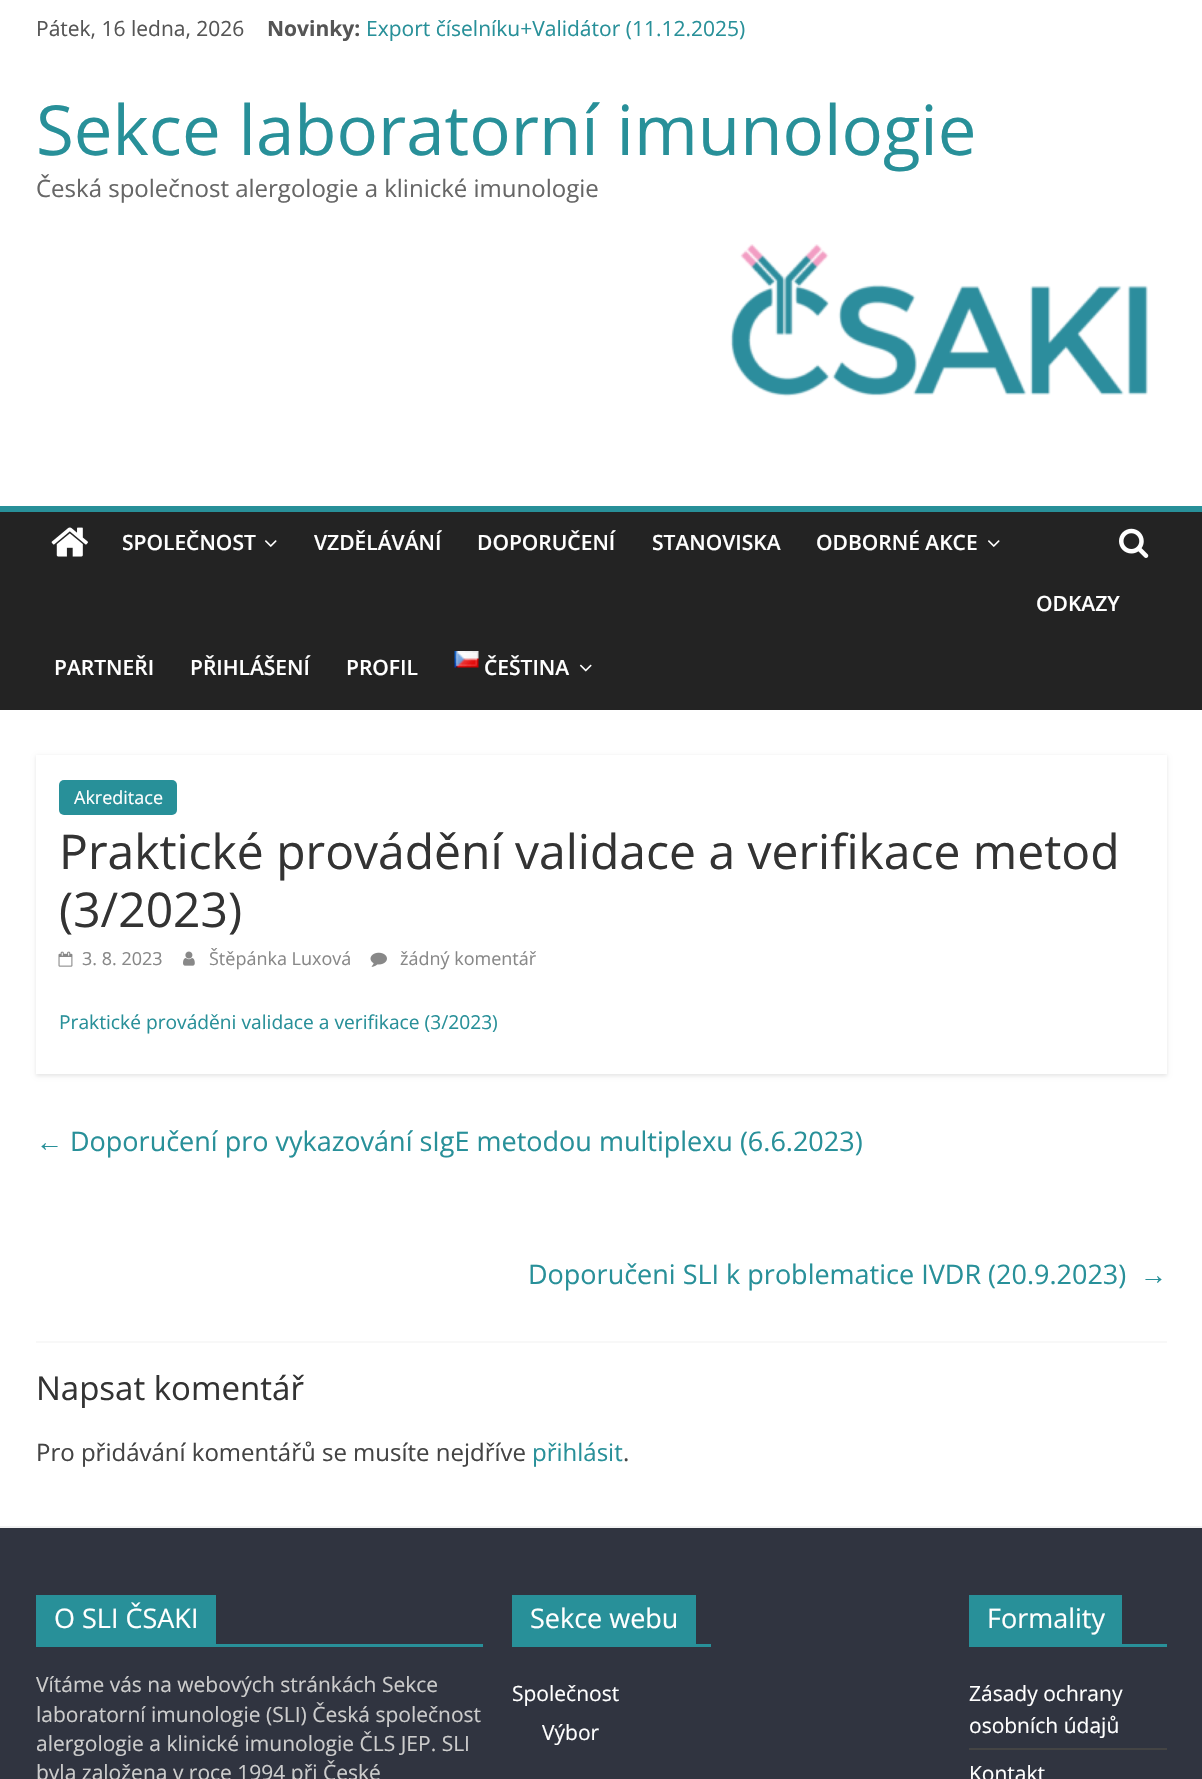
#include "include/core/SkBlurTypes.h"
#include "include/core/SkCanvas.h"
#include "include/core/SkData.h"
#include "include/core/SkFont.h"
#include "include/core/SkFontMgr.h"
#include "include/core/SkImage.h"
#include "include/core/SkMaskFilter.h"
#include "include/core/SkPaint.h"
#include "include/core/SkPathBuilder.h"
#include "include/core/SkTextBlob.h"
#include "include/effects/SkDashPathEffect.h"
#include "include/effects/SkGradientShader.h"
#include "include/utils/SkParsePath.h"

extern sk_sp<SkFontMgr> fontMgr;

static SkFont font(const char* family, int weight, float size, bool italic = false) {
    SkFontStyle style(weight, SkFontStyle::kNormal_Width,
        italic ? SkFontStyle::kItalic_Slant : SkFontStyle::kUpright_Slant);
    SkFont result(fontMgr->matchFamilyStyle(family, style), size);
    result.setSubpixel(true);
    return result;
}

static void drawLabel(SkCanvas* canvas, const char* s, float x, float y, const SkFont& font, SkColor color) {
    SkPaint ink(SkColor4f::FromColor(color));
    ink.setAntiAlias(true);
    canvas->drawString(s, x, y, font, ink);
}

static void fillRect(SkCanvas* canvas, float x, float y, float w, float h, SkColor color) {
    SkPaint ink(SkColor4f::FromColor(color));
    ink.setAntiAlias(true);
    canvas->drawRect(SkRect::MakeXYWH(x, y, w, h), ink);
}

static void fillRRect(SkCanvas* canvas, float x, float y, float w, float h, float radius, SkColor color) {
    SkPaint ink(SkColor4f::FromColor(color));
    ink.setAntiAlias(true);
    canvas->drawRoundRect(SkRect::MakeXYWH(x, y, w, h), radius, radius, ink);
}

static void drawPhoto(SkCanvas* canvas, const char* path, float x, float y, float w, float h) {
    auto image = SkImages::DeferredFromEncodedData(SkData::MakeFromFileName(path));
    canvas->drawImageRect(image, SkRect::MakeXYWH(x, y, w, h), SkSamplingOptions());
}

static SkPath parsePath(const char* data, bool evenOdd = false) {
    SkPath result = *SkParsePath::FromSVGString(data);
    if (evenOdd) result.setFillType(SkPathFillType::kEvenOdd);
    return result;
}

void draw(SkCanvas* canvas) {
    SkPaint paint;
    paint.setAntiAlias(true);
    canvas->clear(0xFFFFFFFF);
    SkFont font1 = font("Open Sans", 400, 21);
    drawLabel(canvas, "Pátek, 16 ledna, 2026", 36, 36, font1, 0xFF555555);
    SkFont font2 = font("Open Sans", 700, 21);
    drawLabel(canvas, "Novinky:", 267, 36, font2, 0xFF555555);
    drawLabel(canvas, "Export číselníku+Validátor (11.12.2025)", 366, 36, font1, 0xFF289099);
    SkFont font3 = font("Open Sans", 400, 69);
    drawLabel(canvas, "Sekce laboratorní imunologie", 36, 155, font3, 0xFF289099);
    SkFont font4 = font("Open Sans", 400, 24);
    drawLabel(canvas, "Česká společnost alergologie a klinické imunologie", 36, 197, font4, 0xFF666666);
    drawPhoto(canvas, "assets/img1.png", 730, 244, 418, 153);
    fillRect(canvas, 0, 512, 1202, 198, 0xFF232323);
    fillRect(canvas, 0, 506, 1202, 6, 0xFF289099);
    drawPhoto(canvas, "assets/img2.png", 51, 527, 37, 30);
    drawPhoto(canvas, "assets/img3.png", 1119, 528, 30, 30);
    SkFont font5 = font("Open Sans", 600, 21);
    drawLabel(canvas, "SPOLEČNOST", 122, 550, font5, 0xFFFFFFFF);
    drawPhoto(canvas, "assets/img4.png", 265, 540, 12, 7);
    drawLabel(canvas, "VZDĚLÁVÁNÍ", 314, 550, font5, 0xFFFFFFFF);
    drawLabel(canvas, "DOPORUČENÍ", 477, 550, font5, 0xFFFFFFFF);
    drawLabel(canvas, "STANOVISKA", 652, 550, font5, 0xFFFFFFFF);
    drawLabel(canvas, "ODBORNÉ AKCE", 816, 550, font5, 0xFFFFFFFF);
    drawPhoto(canvas, "assets/img4.png", 988, 540, 12, 7);
    drawLabel(canvas, "ODKAZY", 1036, 611, font5, 0xFFFFFFFF);
    drawLabel(canvas, "PARTNEŘI", 54, 675, font5, 0xFFFFFFFF);
    drawLabel(canvas, "PŘIHLÁŠENÍ", 190, 675, font5, 0xFFFFFFFF);
    drawLabel(canvas, "PROFIL", 346, 675, font5, 0xFFFFFFFF);
    drawPhoto(canvas, "assets/img5.png", 454, 651, 25, 17);
    drawLabel(canvas, "ČEŠTINA", 484, 675, font5, 0xFFFFFFFF);
    drawPhoto(canvas, "assets/img6.png", 579, 664, 13, 8);
    canvas->save();
    canvas->clipPath(parsePath("M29 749H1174V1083H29ZM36 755H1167V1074H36Z", true), true);
    paint.setColor(0x1A000000);
    paint.setMaskFilter(SkMaskFilter::MakeBlur(kNormal_SkBlurStyle, 2));
    canvas->drawRect(SkRect::MakeXYWH(36, 756, 1131, 320), paint);
    paint.setMaskFilter(nullptr);
    canvas->restore();
    fillRRect(canvas, 59, 780, 118, 35, 5, 0xFF289099);
    SkFont font6 = font("Open Sans", 400, 18);
    drawLabel(canvas, "Akreditace", 74, 804, font6, 0xFFFFFFFF);
    SkFont font7 = font("Open Sans", 400, 48);
    drawLabel(canvas, "Praktické provádění validace a verifikace metod", 59, 869, font7, 0xFF333333);
    drawLabel(canvas, "(3/2023)", 59, 927, font7, 0xFF333333);
    drawPhoto(canvas, "assets/img7.png", 58, 951, 15, 16);
    drawLabel(canvas, "3. 8. 2023", 82, 965, font6, 0xFF888888);
    drawPhoto(canvas, "assets/img8.png", 183, 951, 12, 15);
    drawLabel(canvas, "Štěpánka Luxová", 209, 965, font6, 0xFF888888);
    drawPhoto(canvas, "assets/img9.png", 370, 952, 17, 15);
    drawLabel(canvas, "žádný komentář", 400, 965, font6, 0xFF888888);
    SkFont font8 = font("Open Sans", 400, 19.2f);
    drawLabel(canvas, "Praktické prováděni validace a verifikace (3/2023)", 59, 1029, font8, 0xFF289099);
    SkFont font9 = font("Liberation Serif", 400, 27);
    drawLabel(canvas, "←", 36, 1151, font9, 0xFF289099);
    SkFont font10 = font("Open Sans", 400, 27);
    drawLabel(canvas, "Doporučení pro vykazování sIgE metodou multiplexu (6.6.2023)", 70, 1151, font10, 0xFF289099);
    drawLabel(canvas, "Doporučeni SLI k problematice IVDR (20.9.2023)", 528, 1284, font10, 0xFF289099);
    drawLabel(canvas, "→", 1140, 1284, font9, 0xFF289099);
    fillRect(canvas, 36, 1341, 1131, 2, 0xFFF8F8F8);
    SkFont font11 = font("Open Sans", 400, 33);
    drawLabel(canvas, "Napsat komentář", 36, 1400, font11, 0xFF333333);
    drawLabel(canvas, "Pro přidávání komentářů se musíte nejdříve", 36, 1461, font4, 0xFF444444);
    drawLabel(canvas, "přihlásit", 532, 1461, font4, 0xFF289099);
    drawLabel(canvas, ".", 623, 1461, font4, 0xFF444444);
    fillRect(canvas, 0, 1528, 1202, 251, 0xFF303440);
    fillRect(canvas, 0, 1526, 1202, 2, 0xFFF2F2F2);
    fillRect(canvas, 36, 1644, 447, 3, 0xFF289099);
    fillRect(canvas, 36, 1595, 180, 49, 0xFF289099);
    drawLabel(canvas, "O SLI ČSAKI", 54, 1628, font10, 0xFFFFFFFF);
    drawLabel(canvas, "Vítáme vás na webových stránkách Sekce", 36, 1692, font1, 0xFFCCCCCC);
    drawLabel(canvas, "laboratorní imunologie (SLI) Česká společnost", 36, 1722, font1, 0xFFCCCCCC);
    drawLabel(canvas, "alergologie a klinické imunologie ČLS JEP. SLI", 36, 1751, font1, 0xFFCCCCCC);
    drawLabel(canvas, "byla založena v roce 1994 při České", 36, 1780, font1, 0xFFCCCCCC);
    fillRect(canvas, 512, 1644, 199, 3, 0xFF289099);
    fillRect(canvas, 512, 1595, 184, 49, 0xFF289099);
    drawLabel(canvas, "Sekce webu", 530, 1628, font10, 0xFFFFFFFF);
    drawLabel(canvas, "Společnost", 512, 1701, font1, 0xFFFFFFFF);
    drawLabel(canvas, "Výbor", 542, 1740, font1, 0xFFFFFFFF);
    fillRect(canvas, 969, 1644, 198, 3, 0xFF289099);
    fillRect(canvas, 969, 1595, 153, 49, 0xFF289099);
    drawLabel(canvas, "Formality", 987, 1628, font10, 0xFFFFFFFF);
    fillRect(canvas, 969, 1748, 198, 2, 0xFF444444);
    drawLabel(canvas, "Zásady ochrany", 969, 1701, font1, 0xFFFFFFFF);
    drawLabel(canvas, "osobních údajů", 969, 1733, font1, 0xFFFFFFFF);
    drawLabel(canvas, "Kontakt", 969, 1781, font1, 0xFFFFFFFF);
}
